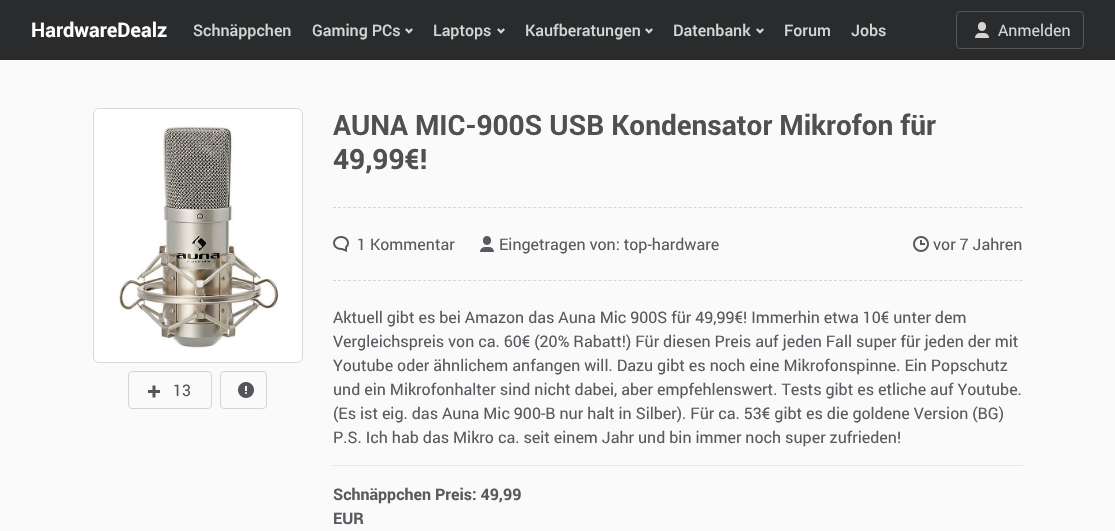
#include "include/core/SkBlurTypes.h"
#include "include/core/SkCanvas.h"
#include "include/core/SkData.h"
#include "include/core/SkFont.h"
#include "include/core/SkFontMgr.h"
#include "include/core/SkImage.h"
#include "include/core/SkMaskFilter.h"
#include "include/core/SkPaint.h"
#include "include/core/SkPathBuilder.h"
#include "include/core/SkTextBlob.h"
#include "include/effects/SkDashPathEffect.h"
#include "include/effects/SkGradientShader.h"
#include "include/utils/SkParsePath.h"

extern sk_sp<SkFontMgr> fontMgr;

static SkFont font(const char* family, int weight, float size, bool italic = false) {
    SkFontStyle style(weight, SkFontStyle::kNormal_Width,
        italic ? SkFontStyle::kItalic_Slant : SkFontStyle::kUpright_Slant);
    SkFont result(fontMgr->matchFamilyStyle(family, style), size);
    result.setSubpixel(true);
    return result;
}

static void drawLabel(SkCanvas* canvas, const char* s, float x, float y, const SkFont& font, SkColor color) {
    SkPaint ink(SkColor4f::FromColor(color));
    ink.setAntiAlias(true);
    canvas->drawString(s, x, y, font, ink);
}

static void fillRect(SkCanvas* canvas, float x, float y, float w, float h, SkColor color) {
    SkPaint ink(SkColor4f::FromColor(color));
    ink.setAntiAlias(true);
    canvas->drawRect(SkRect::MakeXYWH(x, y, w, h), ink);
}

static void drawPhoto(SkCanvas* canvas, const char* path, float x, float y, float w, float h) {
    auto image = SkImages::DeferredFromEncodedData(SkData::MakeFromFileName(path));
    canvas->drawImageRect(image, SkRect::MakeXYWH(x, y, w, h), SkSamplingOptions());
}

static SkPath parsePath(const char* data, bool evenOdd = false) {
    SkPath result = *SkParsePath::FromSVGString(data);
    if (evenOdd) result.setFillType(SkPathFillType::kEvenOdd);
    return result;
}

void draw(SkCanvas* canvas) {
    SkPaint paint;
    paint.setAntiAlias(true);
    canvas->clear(0xFFFAFAFA);
    fillRect(canvas, 0, 0, 1115, 60, 0xFF2A2B2D);
    SkFont font1 = font("Roboto", 700, 20);
    drawLabel(canvas, "HardwareDealz", 31, 37, font1, 0xFFFFFFFF);
    SkFont font2 = font("Roboto", 500, 16);
    drawLabel(canvas, "Schnäppchen", 193, 36, font2, 0xFFD4D5D5);
    drawLabel(canvas, "Gaming PCs", 312, 36, font2, 0xFFD4D5D5);
    drawPhoto(canvas, "assets/img1.png", 405, 28, 8, 6);
    drawLabel(canvas, "Laptops", 433, 36, font2, 0xFFD4D5D5);
    drawPhoto(canvas, "assets/img1.png", 497, 28, 8, 6);
    drawLabel(canvas, "Kaufberatungen", 525, 36, font2, 0xFFD4D5D5);
    drawPhoto(canvas, "assets/img1.png", 645, 28, 8, 6);
    drawLabel(canvas, "Datenbank", 673, 36, font2, 0xFFD4D5D5);
    drawPhoto(canvas, "assets/img1.png", 756, 28, 8, 6);
    drawLabel(canvas, "Forum", 784, 36, font2, 0xFFD4D5D5);
    drawLabel(canvas, "Jobs", 851, 36, font2, 0xFFD4D5D5);
    paint.setStroke(true);
    paint.setStrokeWidth(1);
    paint.setColor(0xFF555557);
    canvas->drawRoundRect(SkRect::MakeXYWH(956.5f, 11.5f, 127, 37), 3.5f, 3.5f, paint);
    drawPhoto(canvas, "assets/img2.png", 975, 22, 14, 16);
    SkFont font3 = font("Roboto", 400, 16);
    drawLabel(canvas, "Anmelden", 998, 36, font3, 0xFFD4D5D5);
    paint.setStroke(false);
    paint.setColor(0xFFFFFFFF);
    canvas->drawRoundRect(SkRect::MakeXYWH(93.5f, 108.5f, 209, 254), 5.5f, 5.5f, paint);
    paint.setStroke(true);
    paint.setColor(0xFFD9D9D9);
    canvas->drawRoundRect(SkRect::MakeXYWH(93.5f, 108.5f, 209, 254), 5.5f, 5.5f, paint);
    drawPhoto(canvas, "assets/img3.png", 118, 125, 161, 224);
    paint.setColor(0xFFD4D4D4);
    canvas->drawRoundRect(SkRect::MakeXYWH(128.5f, 371.5f, 83, 37), 3.5f, 3.5f, paint);
    drawPhoto(canvas, "assets/img4.png", 148, 385, 12, 13);
    drawLabel(canvas, "13", 173, 396, font3, 0xFF565458);
    canvas->drawRoundRect(SkRect::MakeXYWH(220.5f, 371.5f, 46, 37), 3.5f, 3.5f, paint);
    drawPhoto(canvas, "assets/img5.png", 238, 382, 16, 16);
    paint.setColor(0xFFD7D7D7);
    paint.setPathEffect(SkDashPathEffect::Make({{3, 2.01f}}, 0));
    canvas->drawPath(parsePath("M333 207.5H1023"), paint);
    paint.setPathEffect(nullptr);
    SkFont font4 = font("Roboto", 700, 28);
    drawLabel(canvas, "AUNA MIC-900S USB Kondensator Mikrofon für", 333, 135, font4, 0xFF505050);
    drawLabel(canvas, "49,99€!", 333, 169, font4, 0xFF505050);
    paint.setPathEffect(SkDashPathEffect::Make({{3, 2.01f}}, 0));
    canvas->drawPath(parsePath("M333 280.5H1023"), paint);
    paint.setPathEffect(nullptr);
    drawPhoto(canvas, "assets/img6.png", 333, 236, 16, 16);
    drawLabel(canvas, "1 Kommentar", 357, 250, font3, 0xFF59595F);
    drawPhoto(canvas, "assets/img7.png", 480, 236, 14, 16);
    drawLabel(canvas, "Eingetragen von: top-hardware", 499, 250, font3, 0xFF59595F);
    drawPhoto(canvas, "assets/img8.png", 913, 236, 16, 16);
    drawLabel(canvas, "vor 7 Jahren", 933, 250, font3, 0xFF59595F);
    drawLabel(canvas, "Aktuell gibt es bei Amazon das Auna Mic 900S für 49,99€! Immerhin etwa 10€ unter dem", 333, 323, font3, 0xFF59595F);
    drawLabel(canvas, "Vergleichspreis von ca. 60€ (20% Rabatt!) Für diesen Preis auf jeden Fall super für jeden der mit", 333, 347, font3, 0xFF59595F);
    drawLabel(canvas, "Youtube oder ähnlichem anfangen will. Dazu gibt es noch eine Mikrofonspinne. Ein Popschutz", 333, 371, font3, 0xFF59595F);
    drawLabel(canvas, "und ein Mikrofonhalter sind nicht dabei, aber empfehlenswert. Tests gibt es etliche auf Youtube.", 333, 395, font3, 0xFF59595F);
    drawLabel(canvas, "(Es ist eig. das Auna Mic 900-B nur halt in Silber). Für ca. 53€ gibt es die goldene Version (BG)", 333, 419, font3, 0xFF59595F);
    drawLabel(canvas, "P.S. Ich hab das Mikro ca. seit einem Jahr und bin immer noch super zufrieden!", 333, 443, font3, 0xFF59595F);
    fillRect(canvas, 333, 465, 690, 1, 0xFFE6E6E6);
    SkFont font5 = font("Roboto", 700, 16);
    drawLabel(canvas, "Schnäppchen Preis: 49,99", 333, 500, font5, 0xFF59595F);
    drawLabel(canvas, "EUR", 333, 524, font5, 0xFF59595F);
}
